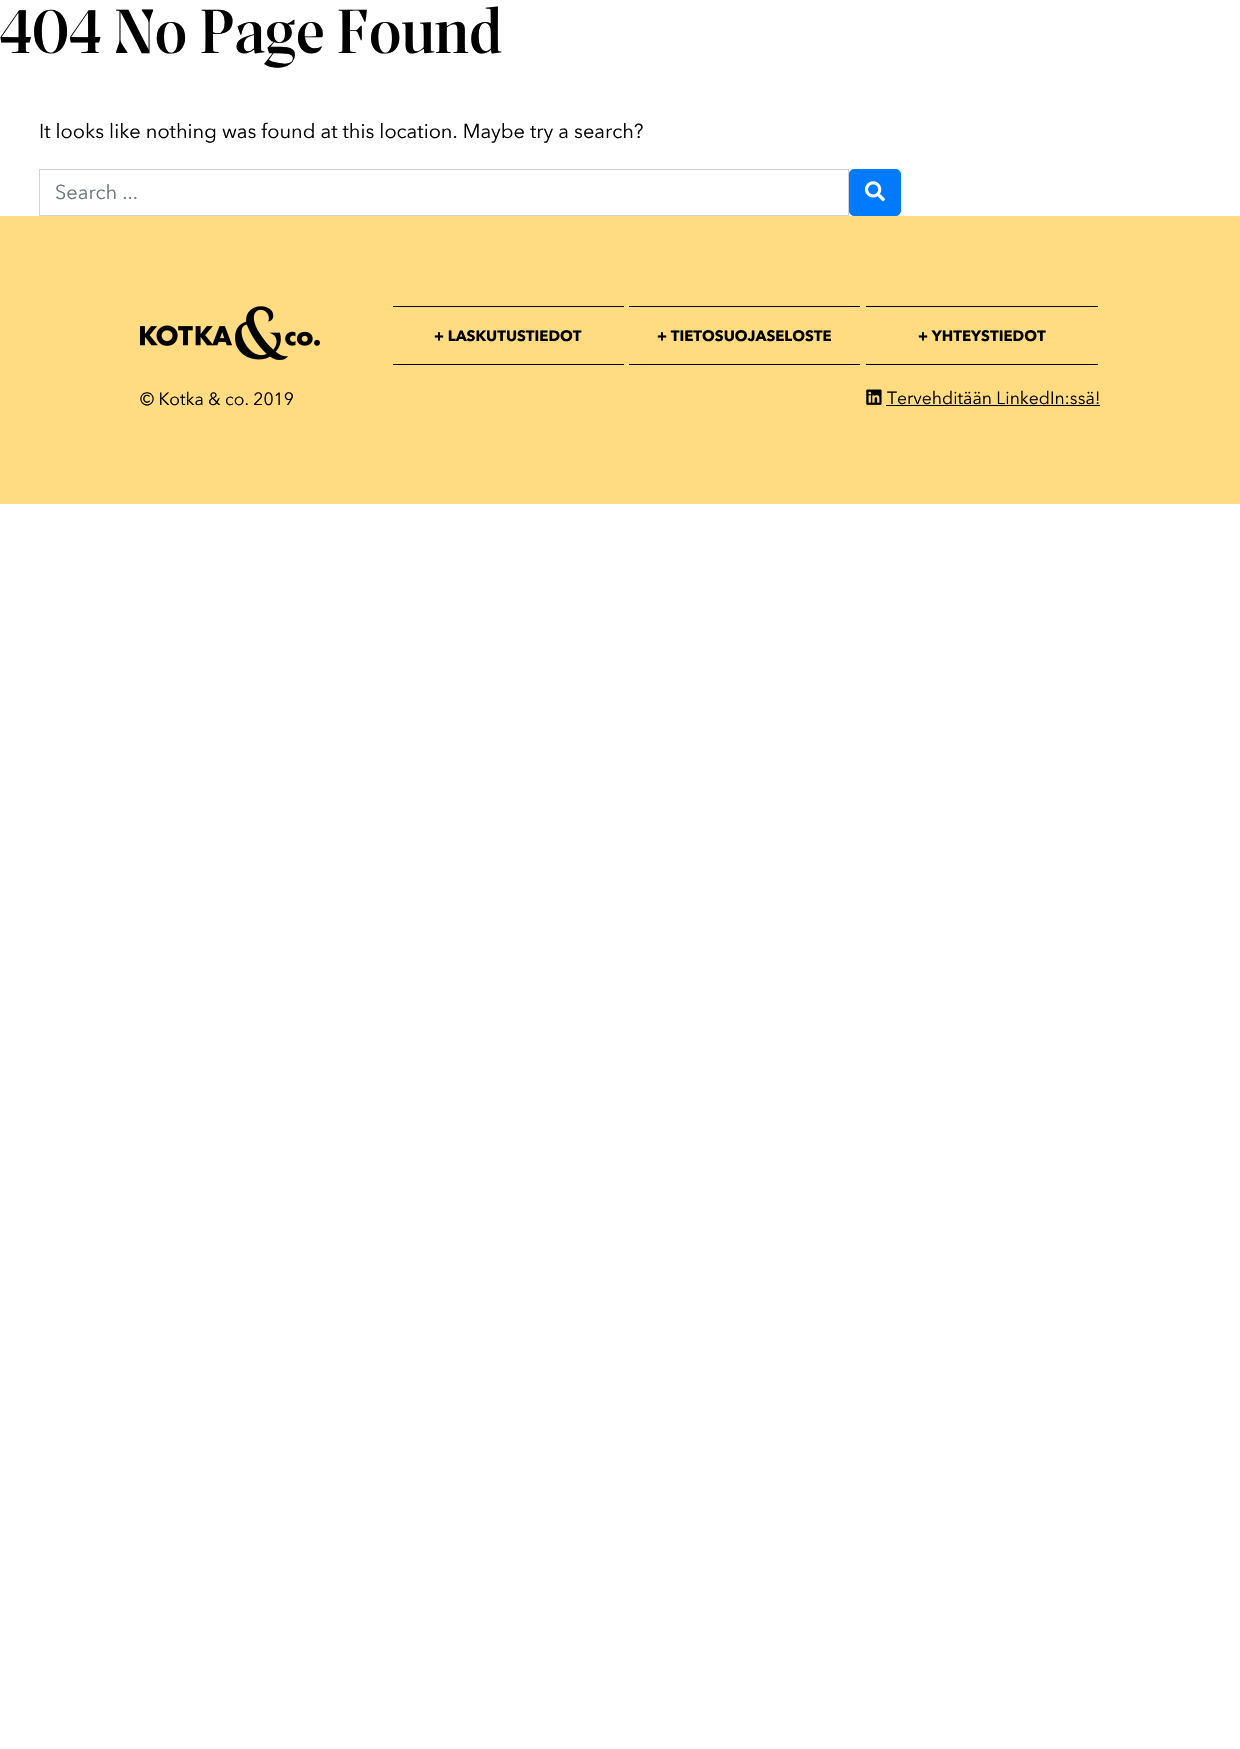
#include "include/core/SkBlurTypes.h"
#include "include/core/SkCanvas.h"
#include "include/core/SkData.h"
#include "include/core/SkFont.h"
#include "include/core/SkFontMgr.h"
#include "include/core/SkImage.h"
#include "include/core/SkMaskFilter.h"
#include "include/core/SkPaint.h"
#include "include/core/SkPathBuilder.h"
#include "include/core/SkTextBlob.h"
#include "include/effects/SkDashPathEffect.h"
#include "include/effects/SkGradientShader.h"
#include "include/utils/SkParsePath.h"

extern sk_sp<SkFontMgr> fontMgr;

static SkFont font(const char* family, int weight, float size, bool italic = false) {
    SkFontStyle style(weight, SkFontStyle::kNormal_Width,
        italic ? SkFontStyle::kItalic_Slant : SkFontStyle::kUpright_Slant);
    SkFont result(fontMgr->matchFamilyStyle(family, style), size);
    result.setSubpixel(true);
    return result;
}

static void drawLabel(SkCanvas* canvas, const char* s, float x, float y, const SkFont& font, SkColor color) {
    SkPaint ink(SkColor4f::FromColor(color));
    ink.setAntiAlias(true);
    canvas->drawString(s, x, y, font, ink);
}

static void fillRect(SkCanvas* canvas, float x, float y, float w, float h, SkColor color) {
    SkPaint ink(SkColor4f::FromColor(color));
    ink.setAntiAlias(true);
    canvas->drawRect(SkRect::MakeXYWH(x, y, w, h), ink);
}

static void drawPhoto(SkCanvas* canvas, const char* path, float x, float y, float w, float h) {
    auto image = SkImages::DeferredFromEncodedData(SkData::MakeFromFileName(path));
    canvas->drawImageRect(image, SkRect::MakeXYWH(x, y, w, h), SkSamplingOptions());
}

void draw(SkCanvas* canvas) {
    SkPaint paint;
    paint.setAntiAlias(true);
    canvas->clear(0xFFFFFFFF);
    SkFont font1 = font("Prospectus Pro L", 600, 65);
    drawLabel(canvas, "404 No Page Found", 0, 53, font1, 0xFF000000);
    SkFont font2 = font("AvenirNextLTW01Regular", 400, 20);
    drawLabel(canvas, "It looks like nothing was found at this location. Maybe try a search?", 39, 138, font2, 0xFF000000);
    paint.setStroke(true);
    paint.setStrokeWidth(1);
    paint.setColor(0xFFCED4DA);
    canvas->drawRect(SkRect::MakeXYWH(39.5f, 169.5f, 809, 46), paint);
    drawLabel(canvas, "Search ...", 55, 199, font2, 0xFF6C757D);
    paint.setStroke(false);
    paint.setColor(0xFF007BFF);
    canvas->drawRoundRect(SkRect::MakeXYWH(849.5f, 169.5f, 51, 46), 4.5f, 4.5f, paint);
    paint.setStroke(true);
    canvas->drawRoundRect(SkRect::MakeXYWH(849.5f, 169.5f, 51, 46), 4.5f, 4.5f, paint);
    drawPhoto(canvas, "assets/img1.png", 865, 181, 20, 21);
    fillRect(canvas, 0, 216, 1240, 288, 0xFFFFDC82);
    drawPhoto(canvas, "assets/img2.png", 140, 306, 180, 54);
    fillRect(canvas, 393, 306, 231, 1, 0xFF000000);
    fillRect(canvas, 393, 364, 231, 1, 0xFF000000);
    SkFont font3 = font("Avenir Next", 700, 15);
    drawLabel(canvas, "+ LASKUTUSTIEDOT", 434, 341, font3, 0xFF000000);
    fillRect(canvas, 629, 306, 231, 1, 0xFF000000);
    fillRect(canvas, 629, 364, 231, 1, 0xFF000000);
    drawLabel(canvas, "+ TIETOSUOJASELOSTE", 657, 341, font3, 0xFF000000);
    fillRect(canvas, 866, 306, 232, 1, 0xFF000000);
    fillRect(canvas, 866, 364, 232, 1, 0xFF000000);
    drawLabel(canvas, "+ YHTEYSTIEDOT", 918, 341, font3, 0xFF000000);
    SkFont font4 = font("AvenirNextLTW01Regular", 400, 17.5f);
    drawLabel(canvas, "© Kotka & co. 2019", 140, 405, font4, 0xFF000000);
    drawPhoto(canvas, "assets/img3.png", 866, 389, 16, 16);
    drawLabel(canvas, "Tervehditään LinkedIn:ssä!", 887, 404, font4, 0xFF000000);
    fillRect(canvas, 886, 405, 214, 1, 0xFF000000);
}
